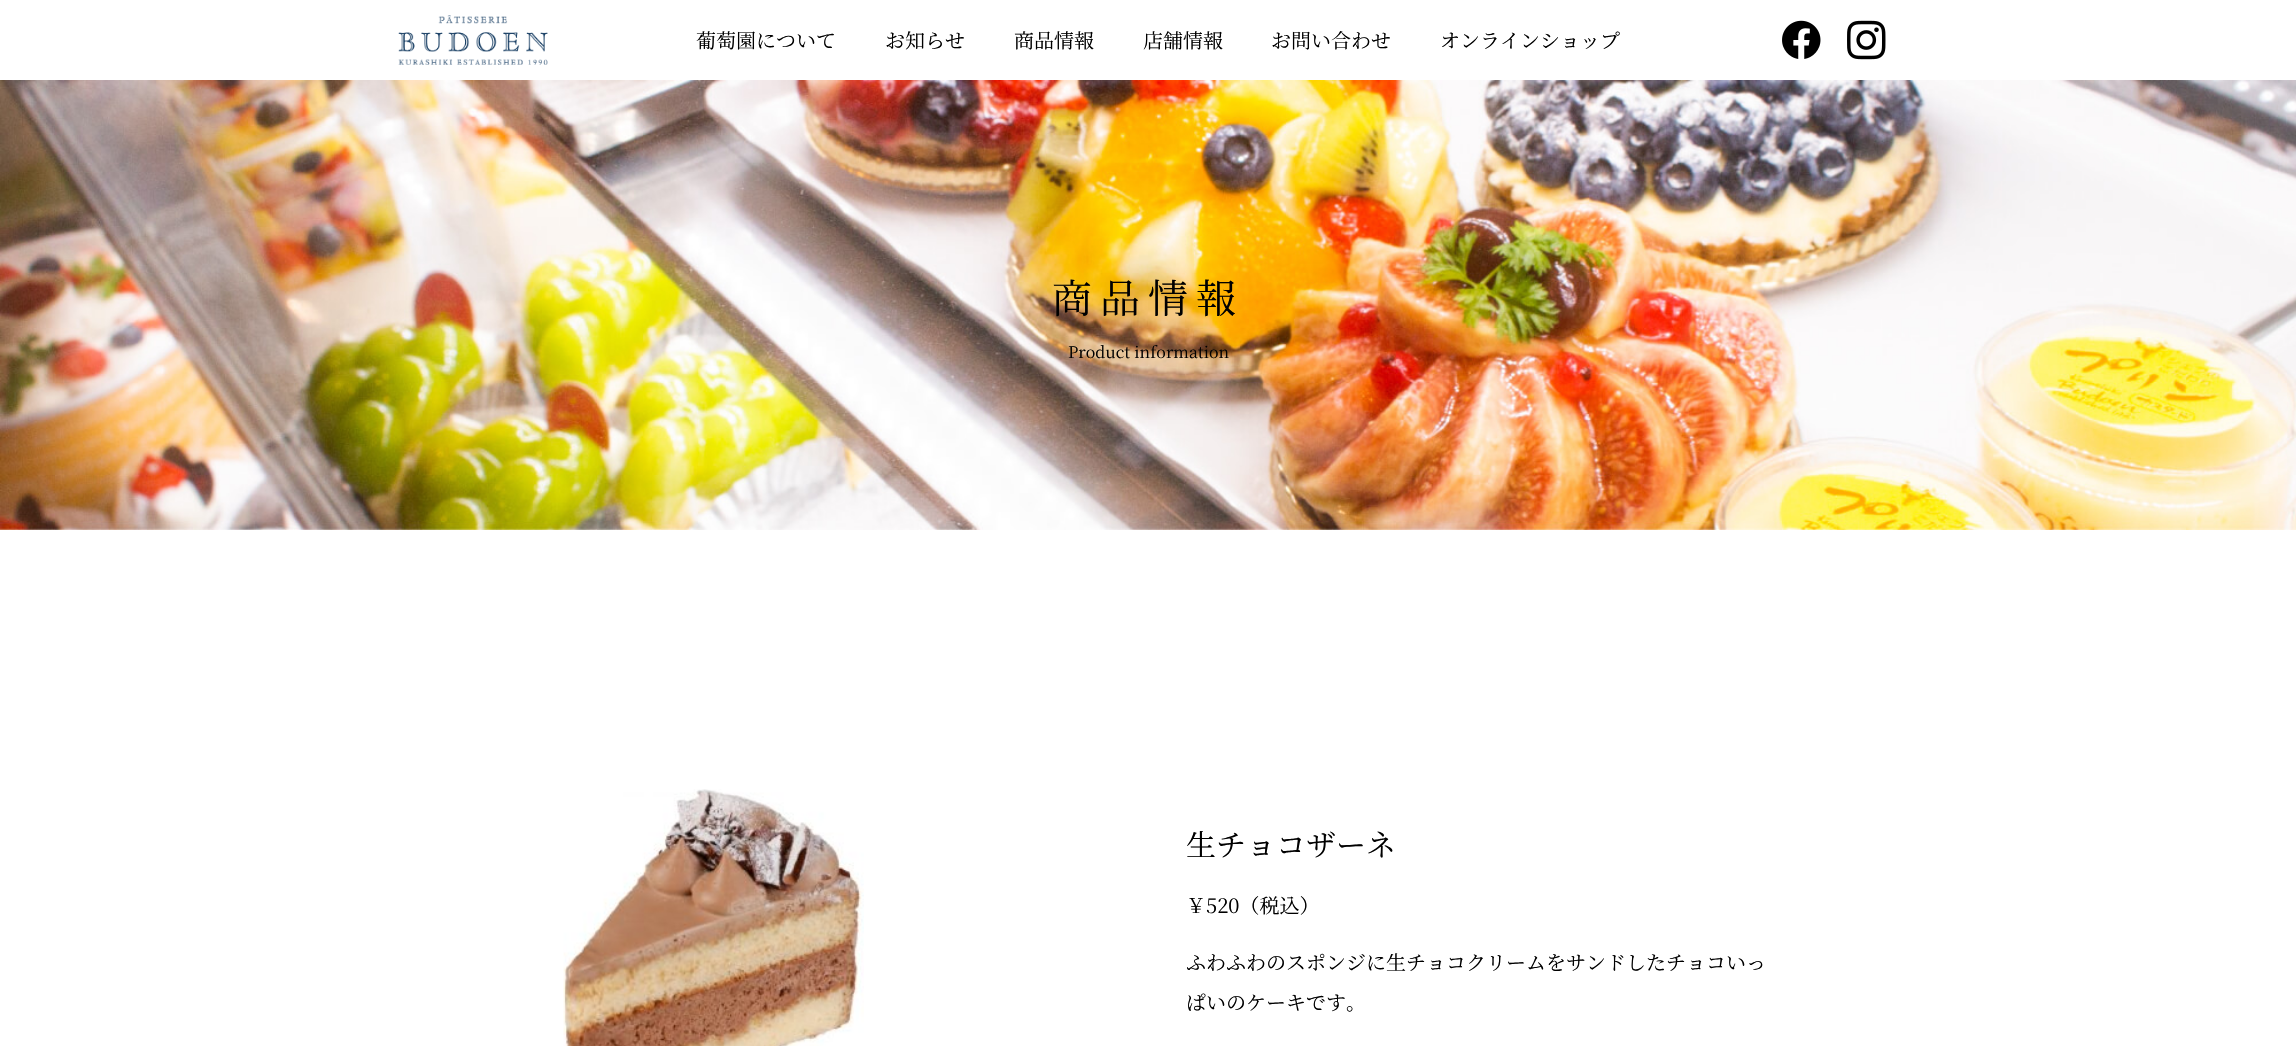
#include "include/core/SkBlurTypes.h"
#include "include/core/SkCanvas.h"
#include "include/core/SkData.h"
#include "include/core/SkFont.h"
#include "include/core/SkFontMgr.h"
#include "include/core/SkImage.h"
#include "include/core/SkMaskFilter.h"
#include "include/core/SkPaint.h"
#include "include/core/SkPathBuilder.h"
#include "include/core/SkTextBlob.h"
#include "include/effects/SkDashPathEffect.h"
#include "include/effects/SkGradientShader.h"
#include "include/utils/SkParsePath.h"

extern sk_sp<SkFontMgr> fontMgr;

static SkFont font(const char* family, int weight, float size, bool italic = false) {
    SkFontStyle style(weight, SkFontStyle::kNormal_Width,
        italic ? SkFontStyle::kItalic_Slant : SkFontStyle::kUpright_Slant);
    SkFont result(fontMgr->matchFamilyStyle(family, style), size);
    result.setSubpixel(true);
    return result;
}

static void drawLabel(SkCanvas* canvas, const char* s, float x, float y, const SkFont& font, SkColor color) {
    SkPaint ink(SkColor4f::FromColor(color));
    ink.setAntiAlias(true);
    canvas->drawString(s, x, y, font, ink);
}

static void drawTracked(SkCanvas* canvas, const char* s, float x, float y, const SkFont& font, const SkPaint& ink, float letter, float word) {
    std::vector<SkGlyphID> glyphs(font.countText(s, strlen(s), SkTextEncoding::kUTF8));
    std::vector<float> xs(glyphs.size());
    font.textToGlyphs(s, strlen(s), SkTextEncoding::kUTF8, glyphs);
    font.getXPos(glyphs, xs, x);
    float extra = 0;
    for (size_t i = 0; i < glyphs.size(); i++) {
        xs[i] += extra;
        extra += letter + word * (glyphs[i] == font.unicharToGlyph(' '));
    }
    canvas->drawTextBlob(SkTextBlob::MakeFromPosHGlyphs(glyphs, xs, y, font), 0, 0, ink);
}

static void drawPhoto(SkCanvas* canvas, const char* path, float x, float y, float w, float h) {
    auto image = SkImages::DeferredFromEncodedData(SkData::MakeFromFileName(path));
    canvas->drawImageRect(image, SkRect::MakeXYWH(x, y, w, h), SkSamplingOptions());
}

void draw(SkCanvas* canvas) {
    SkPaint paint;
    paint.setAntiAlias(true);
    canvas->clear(0xFFFFFFFF);
    drawPhoto(canvas, "assets/img1.png", 398, 15, 150, 50);
    SkFont font1 = font("Noto Serif JP", 400, 20);
    drawLabel(canvas, "葡萄園について", 696, 48, font1, 0xFF000000);
    drawLabel(canvas, "お知らせ", 885, 48, font1, 0xFF000000);
    drawLabel(canvas, "商品情報", 1014, 48, font1, 0xFF000000);
    drawLabel(canvas, "店舗情報", 1143, 48, font1, 0xFF000000);
    drawLabel(canvas, "お問い合わせ", 1271, 48, font1, 0xFF000000);
    drawLabel(canvas, "オンラインショップ", 1440, 48, font1, 0xFF000000);
    drawPhoto(canvas, "assets/img2.png", 1782, 20, 39, 39);
    drawPhoto(canvas, "assets/img3.png", 1847, 20, 39, 40);
    drawPhoto(canvas, "assets/img4.png", 0, 80, 2296, 450);
    SkFont font2 = font("Noto Serif JP", 400, 40);
    paint.setColor(0xFF000000);
    drawTracked(canvas, "商品情報", 1052, 313, font2, paint, 8, 0);
    SkFont font3 = font("Noto Serif JP", 400, 16);
    drawLabel(canvas, "Product information", 1068, 358, font3, 0xFF000000);
    drawPhoto(canvas, "assets/img5.png", 563, 789, 301, 257);
    SkFont font4 = font("Noto Serif JP", 400, 30);
    drawLabel(canvas, "生チョコザーネ", 1186, 856, font4, 0xFF000000);
    drawLabel(canvas, "￥520（税込）", 1186, 913, font1, 0xFF000000);
    drawLabel(canvas, "ふわふわのスポンジに生チョコクリームをサンドしたチョコいっ", 1186, 970, font1, 0xFF000000);
    drawLabel(canvas, "ぱいのケーキです。", 1186, 1010, font1, 0xFF000000);
}
